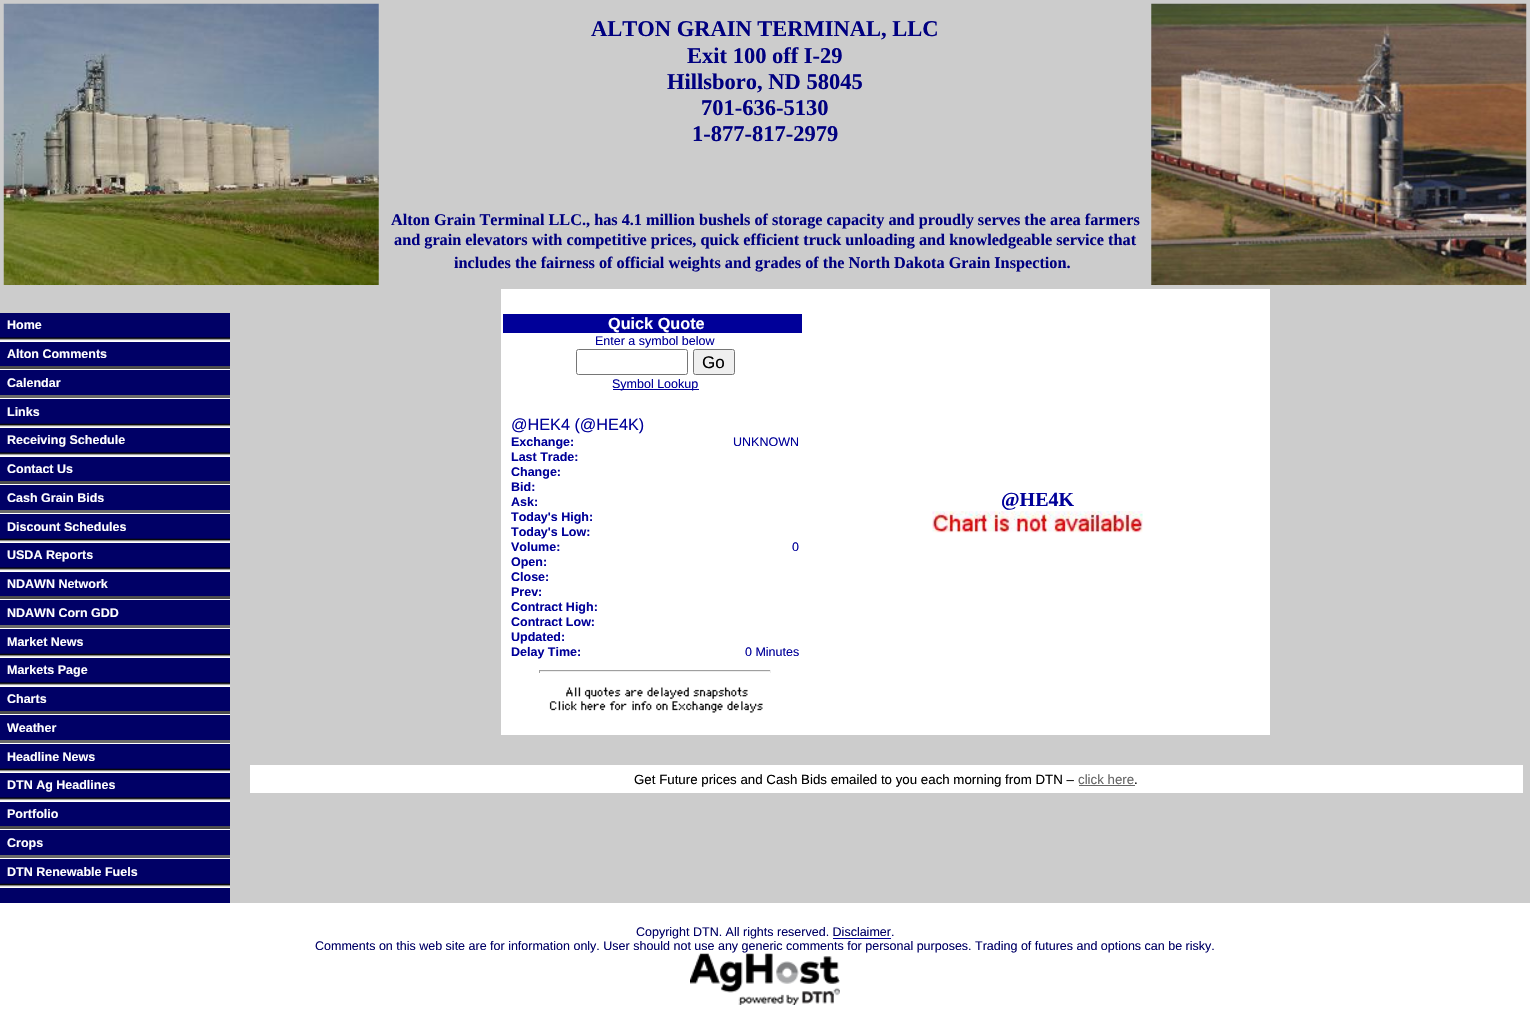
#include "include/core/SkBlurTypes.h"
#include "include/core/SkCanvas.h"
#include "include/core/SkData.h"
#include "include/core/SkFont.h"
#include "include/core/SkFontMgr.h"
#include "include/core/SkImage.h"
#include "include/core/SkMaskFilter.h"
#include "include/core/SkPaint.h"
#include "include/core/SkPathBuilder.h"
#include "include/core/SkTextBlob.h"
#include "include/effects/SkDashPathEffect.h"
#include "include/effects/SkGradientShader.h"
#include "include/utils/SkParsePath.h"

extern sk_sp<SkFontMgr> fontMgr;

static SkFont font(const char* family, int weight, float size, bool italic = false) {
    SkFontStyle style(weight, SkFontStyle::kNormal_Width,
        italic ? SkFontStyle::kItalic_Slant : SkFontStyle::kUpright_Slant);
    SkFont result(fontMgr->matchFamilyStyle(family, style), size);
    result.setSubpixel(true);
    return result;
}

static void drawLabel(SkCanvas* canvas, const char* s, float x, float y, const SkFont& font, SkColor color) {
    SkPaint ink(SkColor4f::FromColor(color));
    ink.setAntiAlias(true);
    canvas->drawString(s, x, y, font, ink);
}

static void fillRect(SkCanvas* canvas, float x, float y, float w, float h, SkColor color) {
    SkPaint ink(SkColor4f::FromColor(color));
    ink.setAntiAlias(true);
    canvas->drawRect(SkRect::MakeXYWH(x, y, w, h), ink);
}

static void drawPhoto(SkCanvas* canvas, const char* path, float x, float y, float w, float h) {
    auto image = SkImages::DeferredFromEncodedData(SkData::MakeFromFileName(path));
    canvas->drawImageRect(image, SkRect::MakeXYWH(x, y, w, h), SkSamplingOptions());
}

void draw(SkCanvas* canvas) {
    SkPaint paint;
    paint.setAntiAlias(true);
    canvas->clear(0xFFFFFFFF);
    fillRect(canvas, 0, 0, 1530, 289, 0xFFCCCCCC);
    drawPhoto(canvas, "assets/img1.png", 3, 3, 376, 282);
    SkFont font1 = font("Liberation Serif", 700, 22.5f);
    drawLabel(canvas, "ALTON GRAIN TERMINAL, LLC", 591, 36, font1, 0xFF000080);
    drawLabel(canvas, "Exit 100 off I-29", 687, 63, font1, 0xFF000080);
    drawLabel(canvas, "Hillsboro, ND 58045", 667, 89, font1, 0xFF000080);
    drawLabel(canvas, "701-636-5130", 701, 115, font1, 0xFF000080);
    drawLabel(canvas, "1-877-817-2979", 692, 141, font1, 0xFF000080);
    SkFont font2 = font("Liberation Serif", 700, 16.25f);
    drawLabel(canvas, "Alton Grain Terminal LLC., has 4.1 million bushels of storage capacity and proudly serves the area farmers", 391, 225, font2, 0xFF000080);
    drawLabel(canvas, "and grain elevators with competitive prices, quick efficient truck unloading and knowledgeable service that", 394, 245, font2, 0xFF000080);
    drawLabel(canvas, "includes the fairness of official weights and grades of the North Dakota Grain Inspection.", 454, 268, font2, 0xFF000080);
    drawPhoto(canvas, "assets/img2.png", 1151, 3, 376, 282);
    fillRect(canvas, 0, 313, 230, 590, 0xFF000066);
    fillRect(canvas, 0, 289, 230, 24, 0xFFCCCCCC);
    SkFont font3 = font("Liberation Sans", 700, 12.5f);
    drawLabel(canvas, "Home", 7, 329, font3, 0xFFFFFFFF);
    fillRect(canvas, 0, 339, 230, 3, 0xFFFFFFFF);
    drawPhoto(canvas, "assets/img3.png", 0, 337, 230, 4);
    drawLabel(canvas, "Alton Comments", 7, 358, font3, 0xFFFFFFFF);
    fillRect(canvas, 0, 369, 230, 1, 0xFFFFFFFF);
    fillRect(canvas, 0, 366, 230, 3, 0xFF4D4D4D);
    drawLabel(canvas, "Calendar", 7, 387, font3, 0xFFFFFFFF);
    fillRect(canvas, 0, 398, 230, 1, 0xFFFFFFFF);
    fillRect(canvas, 0, 395, 230, 3, 0xFF696969);
    drawLabel(canvas, "Links", 7, 416, font3, 0xFFFFFFFF);
    fillRect(canvas, 0, 426, 230, 2, 0xFFFFFFFF);
    drawPhoto(canvas, "assets/img4.png", 0, 423, 230, 4);
    drawLabel(canvas, "Receiving Schedule", 7, 444, font3, 0xFFFFFFFF);
    fillRect(canvas, 0, 454, 230, 3, 0xFFFFFFFF);
    drawPhoto(canvas, "assets/img3.png", 0, 452, 230, 4);
    drawLabel(canvas, "Contact Us", 7, 473, font3, 0xFFFFFFFF);
    fillRect(canvas, 0, 484, 230, 1, 0xFFFFFFFF);
    fillRect(canvas, 0, 481, 230, 3, 0xFF4D4D4D);
    drawLabel(canvas, "Cash Grain Bids", 7, 502, font3, 0xFFFFFFFF);
    fillRect(canvas, 0, 513, 230, 1, 0xFFFFFFFF);
    fillRect(canvas, 0, 510, 230, 3, 0xFF696969);
    drawLabel(canvas, "Discount Schedules", 7, 531, font3, 0xFFFFFFFF);
    fillRect(canvas, 0, 541, 230, 2, 0xFFFFFFFF);
    drawPhoto(canvas, "assets/img4.png", 0, 538, 230, 4);
    drawLabel(canvas, "USDA Reports", 7, 559, font3, 0xFFFFFFFF);
    fillRect(canvas, 0, 569, 230, 3, 0xFFFFFFFF);
    drawPhoto(canvas, "assets/img3.png", 0, 567, 230, 4);
    drawLabel(canvas, "NDAWN Network", 7, 588, font3, 0xFFFFFFFF);
    fillRect(canvas, 0, 599, 230, 1, 0xFFFFFFFF);
    fillRect(canvas, 0, 596, 230, 3, 0xFF4D4D4D);
    drawLabel(canvas, "NDAWN Corn GDD", 7, 617, font3, 0xFFFFFFFF);
    fillRect(canvas, 0, 628, 230, 1, 0xFFFFFFFF);
    fillRect(canvas, 0, 625, 230, 3, 0xFF696969);
    drawLabel(canvas, "Market News", 7, 646, font3, 0xFFFFFFFF);
    fillRect(canvas, 0, 656, 230, 2, 0xFFFFFFFF);
    drawPhoto(canvas, "assets/img4.png", 0, 653, 230, 4);
    drawLabel(canvas, "Markets Page", 7, 674, font3, 0xFFFFFFFF);
    fillRect(canvas, 0, 684, 230, 3, 0xFFFFFFFF);
    drawPhoto(canvas, "assets/img3.png", 0, 682, 230, 4);
    drawLabel(canvas, "Charts", 7, 703, font3, 0xFFFFFFFF);
    fillRect(canvas, 0, 714, 230, 1, 0xFFFFFFFF);
    fillRect(canvas, 0, 711, 230, 3, 0xFF4D4D4D);
    drawLabel(canvas, "Weather", 7, 732, font3, 0xFFFFFFFF);
    fillRect(canvas, 0, 743, 230, 1, 0xFFFFFFFF);
    fillRect(canvas, 0, 740, 230, 3, 0xFF696969);
    drawLabel(canvas, "Headline News", 7, 761, font3, 0xFFFFFFFF);
    fillRect(canvas, 0, 771, 230, 2, 0xFFFFFFFF);
    drawPhoto(canvas, "assets/img4.png", 0, 768, 230, 4);
    drawLabel(canvas, "DTN Ag Headlines", 7, 789, font3, 0xFFFFFFFF);
    fillRect(canvas, 0, 799, 230, 3, 0xFFFFFFFF);
    drawPhoto(canvas, "assets/img3.png", 0, 797, 230, 4);
    drawLabel(canvas, "Portfolio", 7, 818, font3, 0xFFFFFFFF);
    fillRect(canvas, 0, 829, 230, 1, 0xFFFFFFFF);
    fillRect(canvas, 0, 826, 230, 3, 0xFF4D4D4D);
    drawLabel(canvas, "Crops", 7, 847, font3, 0xFFFFFFFF);
    fillRect(canvas, 0, 858, 230, 1, 0xFFFFFFFF);
    fillRect(canvas, 0, 855, 230, 3, 0xFF696969);
    drawLabel(canvas, "DTN Renewable Fuels", 7, 876, font3, 0xFFFFFFFF);
    fillRect(canvas, 0, 886, 230, 2, 0xFFFFFFFF);
    drawPhoto(canvas, "assets/img4.png", 0, 883, 230, 4);
    fillRect(canvas, 230, 289, 1300, 614, 0xFFCCCCCC);
    fillRect(canvas, 501, 289, 769, 446, 0xFFFFFFFF);
    fillRect(canvas, 503, 314, 299, 19, 0xFF000099);
    SkFont font4 = font("Liberation Sans", 700, 16.25f);
    drawLabel(canvas, "Quick Quote", 608, 329, font4, 0xFFFFFFFF);
    SkFont font5 = font("Liberation Sans", 400, 12.5f);
    drawLabel(canvas, "Enter a symbol below", 595, 345, font5, 0xFF000099);
    paint.setStroke(true);
    paint.setStrokeWidth(1);
    paint.setColor(0xFF767676);
    canvas->drawRoundRect(SkRect::MakeXYWH(576.5f, 349.5f, 111, 25), 2, 2, paint);
    paint.setStroke(false);
    paint.setColor(0xFFEFEFEF);
    canvas->drawRoundRect(SkRect::MakeXYWH(693.5f, 349.5f, 41, 25), 2, 2, paint);
    paint.setStroke(true);
    paint.setColor(0xFF767676);
    canvas->drawRoundRect(SkRect::MakeXYWH(693.5f, 349.5f, 41, 25), 2, 2, paint);
    SkFont font6 = font("Liberation Sans", 400, 17);
    drawLabel(canvas, "Go", 702, 368, font6, 0xFF000000);
    fillRect(canvas, 613, 389, 86, 1, 0xFF000099);
    drawLabel(canvas, "Symbol Lookup", 612, 388, font5, 0xFF000099);
    SkFont font7 = font("Liberation Sans", 400, 16.25f);
    drawLabel(canvas, "@HEK4 (@HE4K)", 511, 430, font7, 0xFF000099);
    drawLabel(canvas, "Exchange:", 511, 446, font3, 0xFF000099);
    drawLabel(canvas, "UNKNOWN", 733, 446, font5, 0xFF000099);
    drawLabel(canvas, "Last Trade:", 511, 461, font3, 0xFF000099);
    drawLabel(canvas, "Change:", 511, 476, font3, 0xFF000099);
    drawLabel(canvas, "Bid:", 511, 491, font3, 0xFF000099);
    drawLabel(canvas, "Ask:", 511, 506, font3, 0xFF000099);
    drawLabel(canvas, "Today's High:", 511, 521, font3, 0xFF000099);
    drawLabel(canvas, "Today's Low:", 511, 536, font3, 0xFF000099);
    drawLabel(canvas, "Volume:", 511, 551, font3, 0xFF000099);
    drawLabel(canvas, "0", 792, 551, font5, 0xFF000099);
    drawLabel(canvas, "Open:", 511, 566, font3, 0xFF000099);
    drawLabel(canvas, "Close:", 511, 581, font3, 0xFF000099);
    drawLabel(canvas, "Prev:", 511, 596, font3, 0xFF000099);
    drawLabel(canvas, "Contract High:", 511, 611, font3, 0xFF000099);
    drawLabel(canvas, "Contract Low:", 511, 626, font3, 0xFF000099);
    drawLabel(canvas, "Updated:", 511, 641, font3, 0xFF000099);
    drawLabel(canvas, "Delay Time:", 511, 656, font3, 0xFF000099);
    drawLabel(canvas, "0 Minutes", 745, 656, font5, 0xFF000099);
    fillRect(canvas, 539, 670, 232, 1, 0xFF9F9F9F);
    fillRect(canvas, 770, 670, 1, 3, 0xFFEEEEEE);
    fillRect(canvas, 539, 671, 232, 1, 0xFFEEEEEE);
    fillRect(canvas, 539, 670, 1, 3, 0xFF9F9F9F);
    drawPhoto(canvas, "assets/img5.png", 549, 687, 214, 26);
    SkFont font8 = font("Liberation Serif", 700, 20);
    drawLabel(canvas, "@HE4K", 1001, 506, font8, 0xFF000099);
    drawPhoto(canvas, "assets/img6.png", 932, 511, 211, 22);
    fillRect(canvas, 250, 765, 1273, 28, 0xFFFFFFFF);
    SkFont font9 = font("Liberation Sans", 400, 13.3f);
    drawLabel(canvas, "Get Future prices and Cash Bids emailed to you each morning from DTN –", 634, 784, font9, 0xFF000000);
    drawLabel(canvas, "click here", 1078, 784, font9, 0xFF666666);
    fillRect(canvas, 1079, 785, 56, 1, 0xFF666666);
    drawLabel(canvas, ".", 1134, 784, font9, 0xFF000000);
    drawLabel(canvas, "Copyright DTN. All rights reserved. Disclaimer.", 636, 936, font5, 0xFF000066);
    fillRect(canvas, 833, 938, 58, 1, 0xFF000099);
    drawLabel(canvas, "Comments on this web site are for information only. User should not use any generic comments for personal purposes. Trading of futures and options can be risky.", 315, 950, font5, 0xFF000066);
    drawPhoto(canvas, "assets/img7.png", 690, 953, 150, 52);
}
